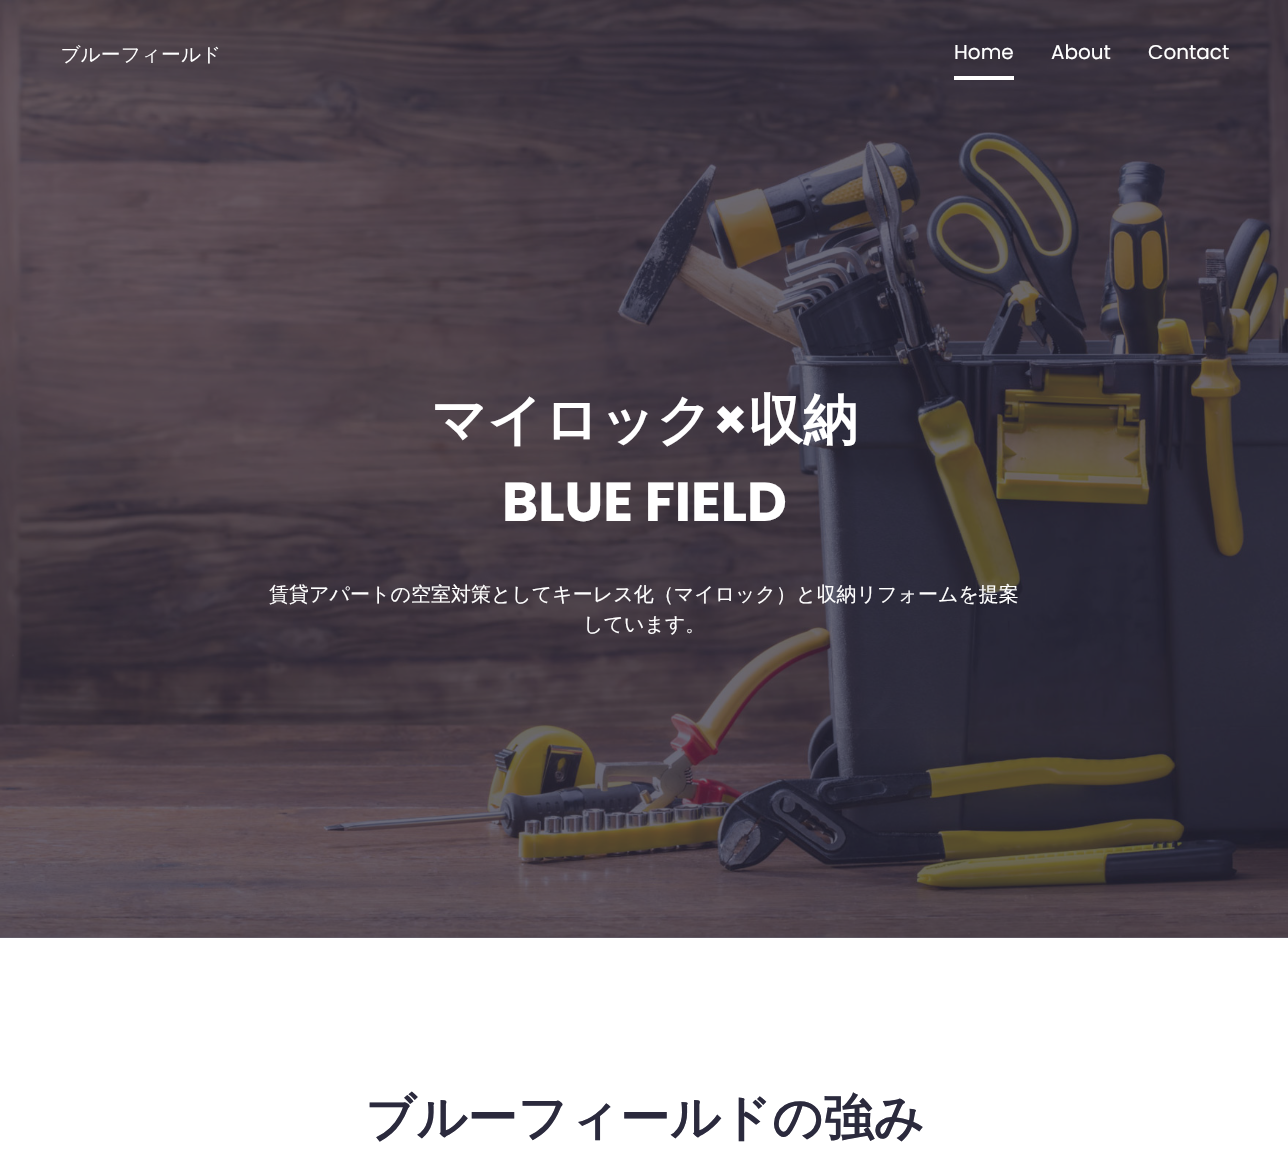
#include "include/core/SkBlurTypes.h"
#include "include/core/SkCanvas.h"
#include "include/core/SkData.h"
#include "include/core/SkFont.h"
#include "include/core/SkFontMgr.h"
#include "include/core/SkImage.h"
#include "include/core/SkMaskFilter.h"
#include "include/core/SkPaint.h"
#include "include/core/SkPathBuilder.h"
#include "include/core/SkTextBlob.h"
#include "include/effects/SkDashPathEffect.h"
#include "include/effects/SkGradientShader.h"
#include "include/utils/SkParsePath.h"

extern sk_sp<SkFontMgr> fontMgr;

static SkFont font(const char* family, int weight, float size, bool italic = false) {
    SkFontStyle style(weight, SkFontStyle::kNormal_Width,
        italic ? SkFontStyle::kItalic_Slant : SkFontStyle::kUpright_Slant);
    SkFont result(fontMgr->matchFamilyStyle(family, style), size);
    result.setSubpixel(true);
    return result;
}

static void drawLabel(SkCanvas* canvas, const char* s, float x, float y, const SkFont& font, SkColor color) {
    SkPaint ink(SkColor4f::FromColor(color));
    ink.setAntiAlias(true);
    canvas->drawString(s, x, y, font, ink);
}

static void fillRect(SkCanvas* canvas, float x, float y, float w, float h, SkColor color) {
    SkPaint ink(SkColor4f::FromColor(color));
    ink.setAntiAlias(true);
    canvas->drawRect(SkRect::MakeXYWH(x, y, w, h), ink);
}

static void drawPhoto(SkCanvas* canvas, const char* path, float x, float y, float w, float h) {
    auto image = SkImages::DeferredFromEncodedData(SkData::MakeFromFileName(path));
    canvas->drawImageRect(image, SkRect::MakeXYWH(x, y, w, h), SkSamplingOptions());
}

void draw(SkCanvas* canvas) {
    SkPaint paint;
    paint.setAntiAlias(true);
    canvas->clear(0xFFFFFFFF);
    fillRect(canvas, 0, 937, 1288, 1, 0xFF6B6A77);
    drawPhoto(canvas, "assets/img2.png", 0, 0, 1288, 938);
    drawPhoto(canvas, "assets/img1.png", 62, 45, 157, 19);
    SkFont font1 = font("Poppins", 400, 20);
    drawLabel(canvas, "Home", 954, 59, font1, 0xFFFFFFFF);
    fillRect(canvas, 954, 76, 60, 4, 0xFFFFFFFF);
    drawLabel(canvas, "About", 1051, 59, font1, 0xFFFFFFFF);
    drawLabel(canvas, "Contact", 1148, 59, font1, 0xFFFFFFFF);
    SkFont font2 = font("WenQuanYi Zen Hei", 700, 55);
    drawLabel(canvas, "マイロック", 431, 439, font2, 0xFFFFFFFF);
    SkFont font3 = font("Poppins", 700, 55);
    drawLabel(canvas, "×", 713, 439, font3, 0xFFFFFFFF);
    drawLabel(canvas, "収納", 748, 439, font2, 0xFFFFFFFF);
    drawLabel(canvas, "BLUE FIELD", 502, 521, font3, 0xFFFFFFFF);
    SkFont font4 = font("WenQuanYi Zen Hei", 500, 20);
    drawLabel(canvas, "賃貸アパートの空室対策としてキーレス化（マイロック）と収納リフォームを提案", 269, 601, font4, 0xFFFFFFFF);
    drawLabel(canvas, "しています。", 583, 631, font4, 0xFFFFFFFF);
    SkFont font5 = font("WenQuanYi Zen Hei", 700, 50);
    drawLabel(canvas, "ブルーフィールドの強み", 365, 1135, font5, 0xFF2B2A3D);
}
